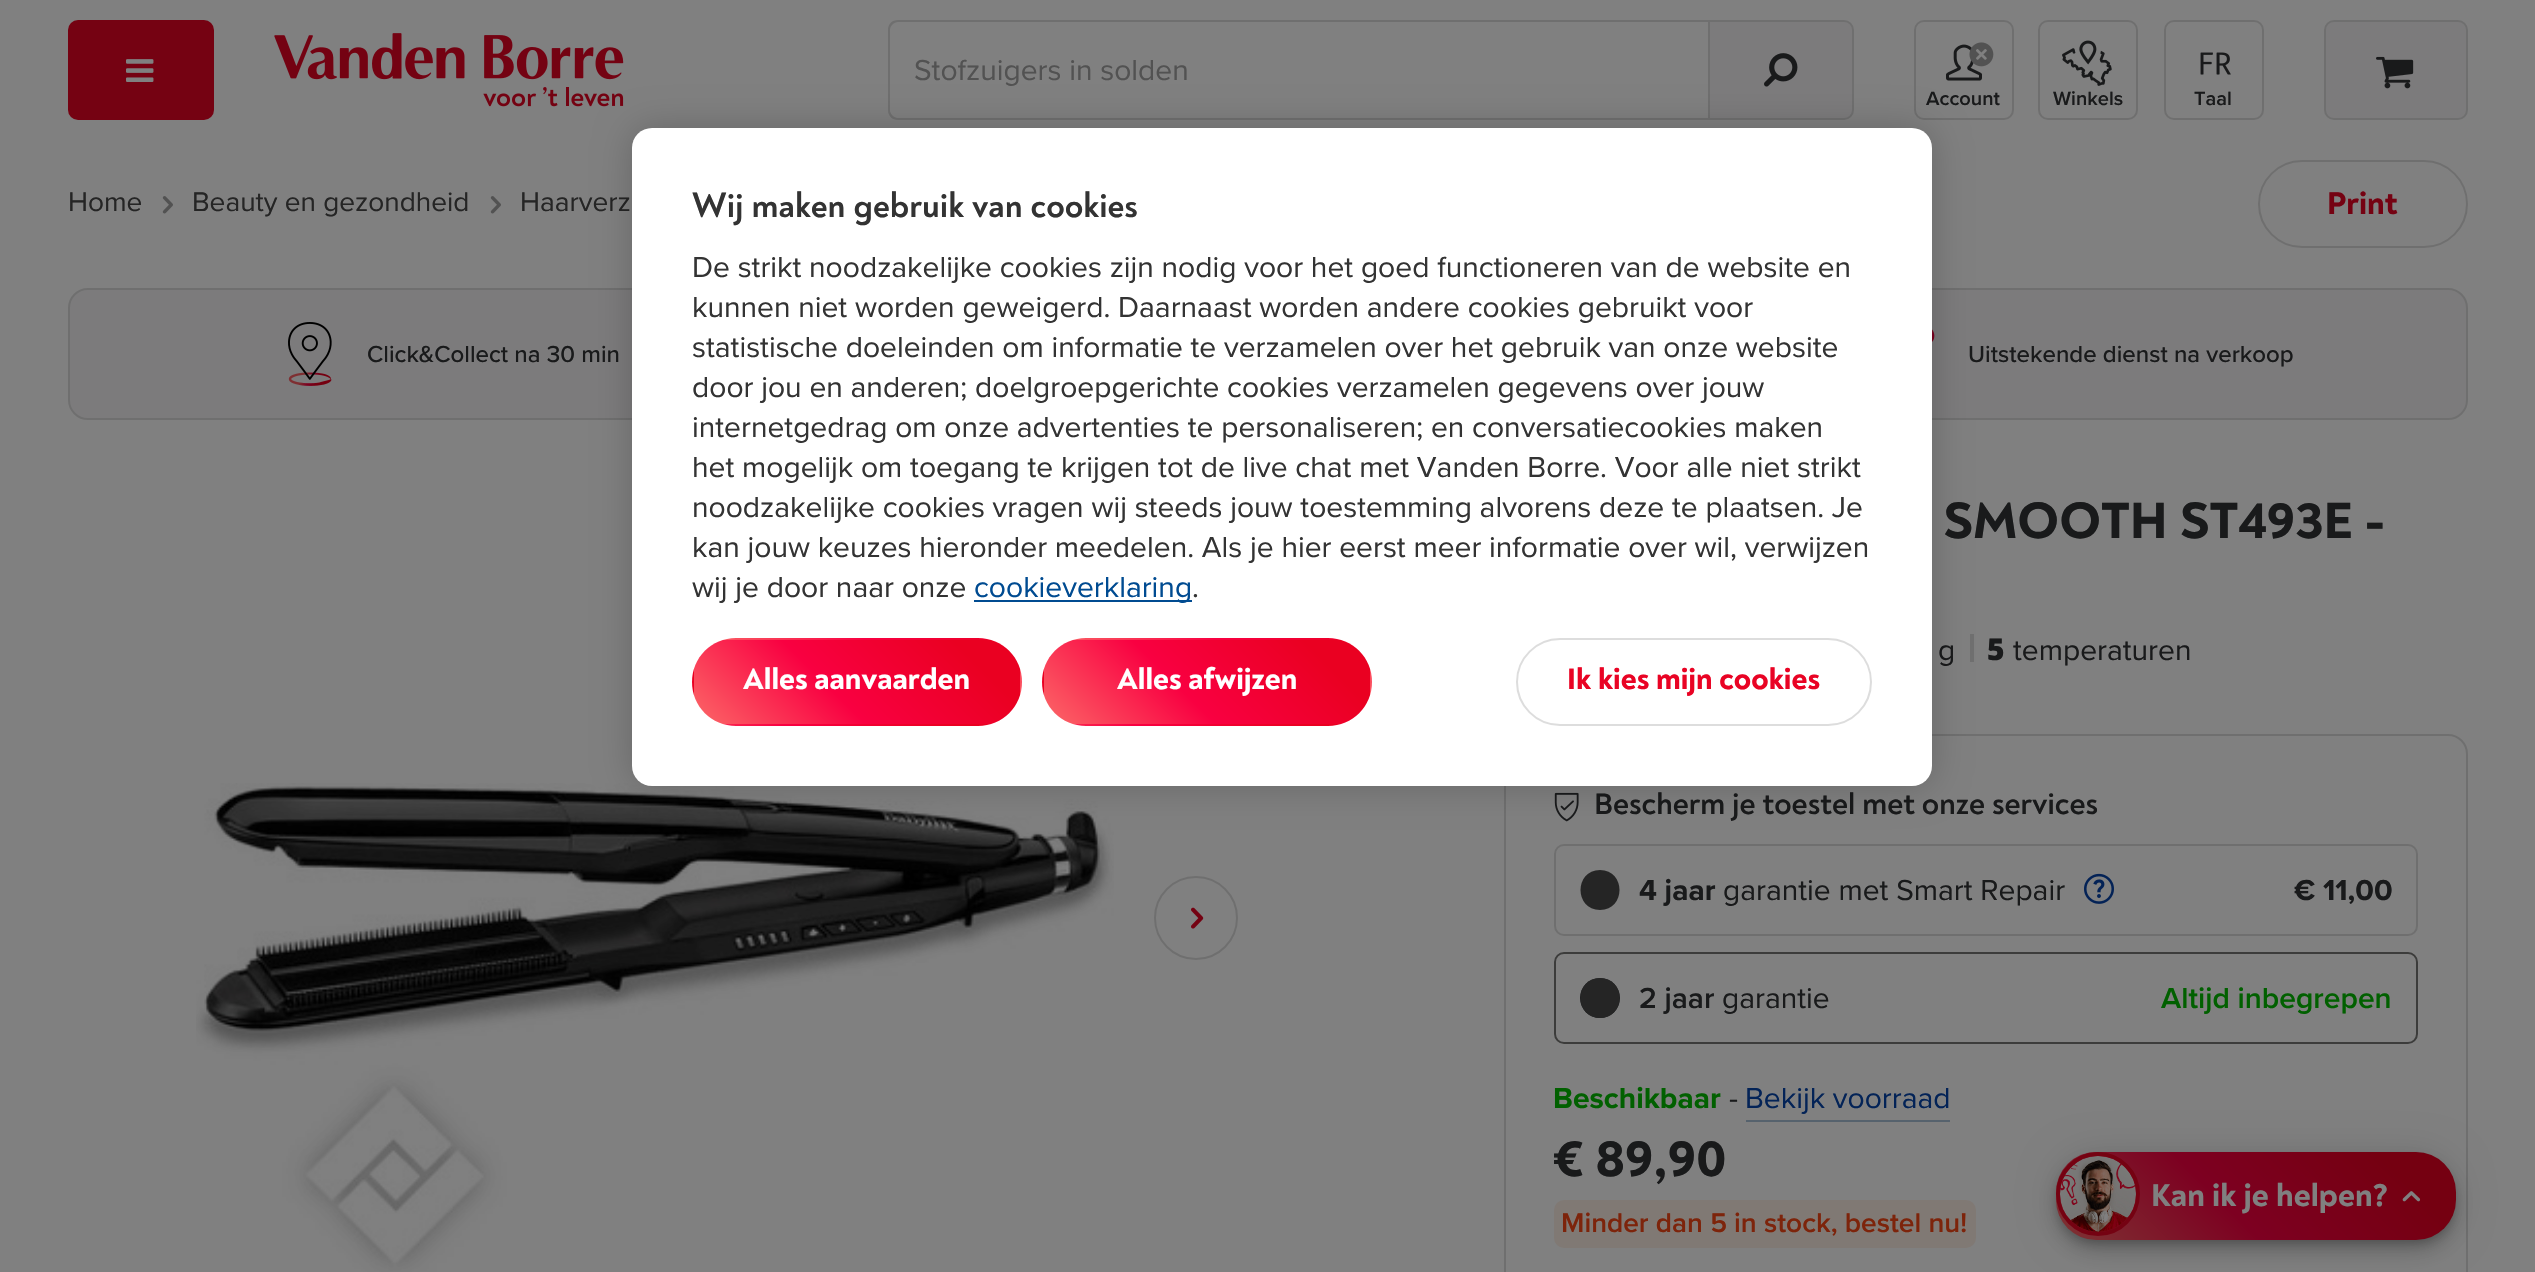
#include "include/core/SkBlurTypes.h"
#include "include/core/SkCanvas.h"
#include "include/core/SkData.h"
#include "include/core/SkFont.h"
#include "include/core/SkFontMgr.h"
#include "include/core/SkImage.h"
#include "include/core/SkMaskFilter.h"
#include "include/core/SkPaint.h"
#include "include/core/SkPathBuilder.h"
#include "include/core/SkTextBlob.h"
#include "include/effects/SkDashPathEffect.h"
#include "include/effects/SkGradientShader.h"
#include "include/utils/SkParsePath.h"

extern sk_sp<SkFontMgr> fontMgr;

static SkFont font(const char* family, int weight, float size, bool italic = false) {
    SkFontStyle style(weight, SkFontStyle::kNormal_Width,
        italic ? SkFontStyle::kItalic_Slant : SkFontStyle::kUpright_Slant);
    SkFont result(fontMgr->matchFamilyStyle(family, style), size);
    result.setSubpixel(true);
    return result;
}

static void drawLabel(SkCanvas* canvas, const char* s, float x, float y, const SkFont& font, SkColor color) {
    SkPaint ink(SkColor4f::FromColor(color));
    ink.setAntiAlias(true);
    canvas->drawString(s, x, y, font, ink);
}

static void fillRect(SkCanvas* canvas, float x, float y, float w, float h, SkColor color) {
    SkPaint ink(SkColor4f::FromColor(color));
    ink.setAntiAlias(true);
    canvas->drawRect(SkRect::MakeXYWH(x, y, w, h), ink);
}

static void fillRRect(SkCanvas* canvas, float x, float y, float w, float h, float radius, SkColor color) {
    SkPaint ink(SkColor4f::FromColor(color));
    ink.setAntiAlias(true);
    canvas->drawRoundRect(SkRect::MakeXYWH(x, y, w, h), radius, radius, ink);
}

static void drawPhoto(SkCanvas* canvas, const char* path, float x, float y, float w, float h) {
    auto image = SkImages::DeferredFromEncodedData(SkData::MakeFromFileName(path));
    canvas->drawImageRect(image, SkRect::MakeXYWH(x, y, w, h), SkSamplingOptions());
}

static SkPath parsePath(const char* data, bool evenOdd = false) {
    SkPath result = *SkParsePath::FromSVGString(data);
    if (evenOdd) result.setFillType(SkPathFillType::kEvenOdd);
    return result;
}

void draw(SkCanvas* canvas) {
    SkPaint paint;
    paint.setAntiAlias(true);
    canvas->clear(0xFF808080);
    fillRRect(canvas, 68, 20, 146, 100, 10, 0xFF750212);
    drawPhoto(canvas, "assets/img1.png", 126, 59, 28, 23);
    drawPhoto(canvas, "assets/img2.png", 274, 33, 350, 74);
    paint.setColor(0xFF6F6F6F);
    canvas->drawPath(parsePath("M898 20H1708V120H898C892 120 888 116 888 110V30C888 24 892 20 898 20ZM898 22H1708V118H898C894 118 890 114 890 110V30C890 26 894 22 898 22Z", true), paint);
    SkFont font1 = font("Proxima Nova", 400, 30);
    drawLabel(canvas, "Stofzuigers in solden", 914, 80, font1, 0xFF525252);
    paint.setColor(0xFF7C7B7C);
    canvas->drawPath(parsePath("M1709 21H1844C1849 21 1853 25 1853 30V110C1853 115 1849 119 1844 119H1709Z"), paint);
    paint.setStroke(true);
    paint.setStrokeWidth(2);
    paint.setColor(0xFF6F6F6F);
    canvas->drawPath(parsePath("M1709 21H1844C1849 21 1853 25 1853 30V110C1853 115 1849 119 1844 119H1709Z"), paint);
    drawPhoto(canvas, "assets/img3.png", 1764, 53, 34, 34);
    paint.setStroke(false);
    paint.setColor(0xFF7C7B7C);
    canvas->drawRoundRect(SkRect::MakeXYWH(2325, 21, 142, 98), 9, 9, paint);
    paint.setStroke(true);
    paint.setColor(0xFF6F6F6F);
    canvas->drawRoundRect(SkRect::MakeXYWH(2325, 21, 142, 98), 9, 9, paint);
    drawPhoto(canvas, "assets/img4.png", 2376, 56, 38, 33);
    canvas->drawRoundRect(SkRect::MakeXYWH(1915, 21, 98, 98), 9, 9, paint);
    drawPhoto(canvas, "assets/img6.png", 1946, 44, 36, 37);
    drawPhoto(canvas, "assets/img5.png", 1969, 42, 25, 25);
    SkFont font2 = font("Proxima Nova", 600, 20);
    drawLabel(canvas, "Account", 1926, 105, font2, 0xFF191A1B);
    canvas->drawRoundRect(SkRect::MakeXYWH(2039, 21, 98, 98), 9, 9, paint);
    drawPhoto(canvas, "assets/img7.png", 2062, 40, 50, 46);
    drawLabel(canvas, "Winkels", 2053, 105, font2, 0xFF191A1B);
    canvas->drawRoundRect(SkRect::MakeXYWH(2165, 21, 98, 98), 9, 9, paint);
    drawPhoto(canvas, "assets/img8.png", 2200, 52, 31, 23);
    drawLabel(canvas, "Taal", 2194, 105, font2, 0xFF191A1B);
    SkFont font3 = font("Proxima Nova", 400, 28);
    drawLabel(canvas, "Home", 68, 211, font3, 0xFF252525);
    drawPhoto(canvas, "assets/img9.png", 162, 196, 11, 18);
    drawLabel(canvas, "Beauty en gezondheid", 192, 211, font3, 0xFF252525);
    drawPhoto(canvas, "assets/img9.png", 490, 196, 11, 18);
    drawLabel(canvas, "Haarverz", 520, 211, font3, 0xFF252525);
    canvas->drawRoundRect(SkRect::MakeXYWH(2259, 161, 208, 86), 43, 43, paint);
    SkFont font4 = font("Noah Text", 800, 32);
    drawLabel(canvas, "Print", 2327, 214, font4, 0xFF750212);
    paint.setStroke(false);
    paint.setColor(0xFF7C7B7C);
    canvas->drawRoundRect(SkRect::MakeXYWH(69, 289, 2398, 130), 19, 19, paint);
    paint.setStroke(true);
    paint.setColor(0xFF6F6F6F);
    canvas->drawRoundRect(SkRect::MakeXYWH(69, 289, 2398, 130), 19, 19, paint);
    drawPhoto(canvas, "assets/img10.png", 288, 322, 44, 64);
    SkFont font5 = font("Proxima Nova", 500, 24);
    drawLabel(canvas, "Click&Collect na 30 min", 367, 362, font5, 0xFF191A1B);
    drawPhoto(canvas, "assets/img11.png", 1932, 329, 3, 13);
    drawLabel(canvas, "Uitstekende dienst na verkoop", 1968, 362, font5, 0xFF191A1B);
    SkFont font6 = font("Noah Text", 800, 52);
    drawLabel(canvas, "SMOOTH ST493E -", 1943, 538, font6, 0xFF191A1B);
    drawLabel(canvas, "g", 1938, 660, font1, 0xFF191A1B);
    fillRect(canvas, 1970, 634, 4, 28, 0xFF6F6F6F);
    SkFont font7 = font("Noto Sans", 900, 30);
    drawLabel(canvas, "5", 1987, 660, font7, 0xFF191A1B);
    drawLabel(canvas, "temperaturen", 2013, 660, font1, 0xFF191A1B);
    drawPhoto(canvas, "assets/img12.png", 196, 783, 918, 489);
    canvas->drawCircle(1196, 918, 41, paint);
    drawPhoto(canvas, "assets/img13.png", 1191, 907, 13, 22);
    canvas->drawRoundRect(SkRect::MakeXYWH(1505, 735, 962, 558), 19, 19, paint);
    drawPhoto(canvas, "assets/img14.png", 1554, 792, 25, 30);
    SkFont font8 = font("Noah Text", 700, 30);
    drawLabel(canvas, "Bescherm je toestel met onze services", 1594, 814, font8, 0xFF191A1B);
    canvas->drawRoundRect(SkRect::MakeXYWH(1555, 845, 862, 90), 9, 9, paint);
    paint.setStroke(false);
    paint.setColor(0xFF252525);
    canvas->drawPath(parsePath("M1600 870C1626 870 1626 910 1600 910C1574 910 1574 870 1600 870Z"), paint);
    SkFont font9 = font("Proxima Nova", 700, 30);
    drawLabel(canvas, "4 jaar", 1639, 900, font9, 0xFF191A1B);
    drawLabel(canvas, "garantie met Smart Repair", 1723, 900, font1, 0xFF191A1B);
    drawPhoto(canvas, "assets/img15.png", 2084, 873, 30, 31);
    drawLabel(canvas, "€ 11,00", 2294, 900, font9, 0xFF191A1B);
    paint.setStroke(true);
    paint.setColor(0xFF3C3C3B);
    canvas->drawRoundRect(SkRect::MakeXYWH(1555, 953, 862, 90), 9, 9, paint);
    paint.setStroke(false);
    paint.setColor(0xFF191A1B);
    canvas->drawCircle(1600, 998, 20, paint);
    paint.setColor(0xFF252525);
    canvas->drawPath(parsePath("M1600 978C1626 978 1626 1018 1600 1018C1574 1018 1574 978 1600 978Z"), paint);
    SkFont font10 = font("Proxima Nova", 600, 30);
    drawLabel(canvas, "2 jaar", 1639, 1008, font10, 0xFF191A1B);
    drawLabel(canvas, "garantie", 1722, 1008, font1, 0xFF191A1B);
    drawLabel(canvas, "Altijd inbegrepen", 2161, 1008, font10, 0xFF016000);
    drawLabel(canvas, "Beschikbaar", 1553, 1108, font9, 0xFF016000);
    drawLabel(canvas, "-", 1729, 1108, font1, 0xFF191A1B);
    drawLabel(canvas, "Bekijk voorraad", 1745, 1108, font1, 0xFF032357);
    fillRect(canvas, 1746, 1120, 204, 2, 0xFF56626D);
    drawLabel(canvas, "€ 89,90", 1553, 1176, font6, 0xFF191A1B);
    fillRRect(canvas, 1554, 1200, 422, 48, 10, 0xFF807974);
    SkFont font11 = font("Proxima Nova", 600, 28);
    drawLabel(canvas, "Minder dan 5 in stock, bestel nu!", 1561, 1232, font11, 0xFF7D240B);
    paint.setColor(0x33000000);
    paint.setMaskFilter(SkMaskFilter::MakeBlur(kNormal_SkBlurStyle, 18));
    canvas->drawRoundRect(SkRect::MakeXYWH(632, 128, 1300, 658), 20, 20, paint);
    paint.setMaskFilter(nullptr);
    fillRRect(canvas, 632, 128, 1300, 658, 20, 0xFFFFFFFF);
    SkFont font12 = font("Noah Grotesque", 700, 36);
    drawLabel(canvas, "Wij maken gebruik van cookies", 692, 217, font12, 0xFF333333);
    drawLabel(canvas, "De strikt noodzakelijke cookies zijn nodig voor het goed functioneren van de website en", 692, 277, font1, 0xFF333333);
    drawLabel(canvas, "kunnen niet worden geweigerd. Daarnaast worden andere cookies gebruikt voor", 692, 317, font1, 0xFF333333);
    drawLabel(canvas, "statistische doeleinden om informatie te verzamelen over het gebruik van onze website", 692, 357, font1, 0xFF333333);
    drawLabel(canvas, "door jou en anderen; doelgroepgerichte cookies verzamelen gegevens over jouw", 692, 397, font1, 0xFF333333);
    drawLabel(canvas, "internetgedrag om onze advertenties te personaliseren; en conversatiecookies maken", 692, 437, font1, 0xFF333333);
    drawLabel(canvas, "het mogelijk om toegang te krijgen tot de live chat met Vanden Borre. Voor alle niet strikt", 692, 477, font1, 0xFF333333);
    drawLabel(canvas, "noodzakelijke cookies vragen wij steeds jouw toestemming alvorens deze te plaatsen. Je", 692, 517, font1, 0xFF333333);
    drawLabel(canvas, "kan jouw keuzes hieronder meedelen. Als je hier eerst meer informatie over wil, verwijzen", 692, 557, font1, 0xFF333333);
    drawLabel(canvas, "wij je door naar onze", 692, 597, font1, 0xFF333333);
    fillRect(canvas, 974, 600, 218, 2, 0xFF004B91);
    drawLabel(canvas, "cookieverklaring", 974, 597, font1, 0xFF004B91);
    drawLabel(canvas, ".", 1192, 597, font1, 0xFF333333);
    canvas->save();
    canvas->clipPath(parsePath("M736 638H978C1002.5 638 1022 657.5 1022 682C1022 706.5 1002.5 726 978 726H736C711.5 726 692 706.5 692 682C692 657.5 711.5 638 736 638Z"), true);
    {
        const SkColor colors[] = {0xFFFB5E64, 0xFFF90041, 0xFFEA0021};
        const float stops[] = {0.04f, 0.42f, 0.84f};
        const SkPoint ends[] = {{755, 701}, {960, 496}};
        paint.setShader(SkGradientShader::MakeLinear(ends, colors, stops, 3, SkTileMode::kClamp));
        paint.setAlpha(255);
    }
    canvas->drawRect(SkRect::MakeXYWH(723, 638, 268, 2), paint);
    {
        const SkColor colors[] = {0xFFFB5E64, 0xFFF90041, 0xFFEA0021};
        const float stops[] = {0.04f, 0.42f, 0.84f};
        const SkPoint ends[] = {{429, 785}, {634, 580}};
        paint.setShader(SkGradientShader::MakeLinear(ends, colors, stops, 3, SkTileMode::kClamp));
        paint.setAlpha(255);
    }
    canvas->drawRect(SkRect::MakeXYWH(692, 669, 2, 26), paint);
    {
        const SkColor colors[] = {0xFFFB5E64, 0xFFF90041, 0xFFEA0021};
        const float stops[] = {0.04f, 0.42f, 0.84f};
        const SkPoint ends[] = {{755, 785}, {960, 580}};
        paint.setShader(SkGradientShader::MakeLinear(ends, colors, stops, 3, SkTileMode::kClamp));
        paint.setAlpha(255);
    }
    canvas->drawRect(SkRect::MakeXYWH(694, 640, 326, 84), paint);
    {
        const SkColor colors[] = {0xFFFB5E64, 0xFFF90041, 0xFFEA0021};
        const float stops[] = {0.04f, 0.42f, 0.84f};
        const SkPoint ends[] = {{1081, 785}, {1286, 580}};
        paint.setShader(SkGradientShader::MakeLinear(ends, colors, stops, 3, SkTileMode::kClamp));
        paint.setAlpha(255);
    }
    canvas->drawRect(SkRect::MakeXYWH(1020, 669, 2, 26), paint);
    {
        const SkColor colors[] = {0xFFFB5E64, 0xFFF90041, 0xFFEA0021};
        const float stops[] = {0.04f, 0.42f, 0.84f};
        const SkPoint ends[] = {{755, 869}, {960, 664}};
        paint.setShader(SkGradientShader::MakeLinear(ends, colors, stops, 3, SkTileMode::kClamp));
        paint.setAlpha(255);
    }
    canvas->drawRect(SkRect::MakeXYWH(723, 724, 268, 2), paint);
    canvas->restore();
    SkFont font13 = font("Noah Text", 800, 30);
    drawLabel(canvas, "Alles aanvaarden", 743, 689, font13, 0xFFFFFFFF);
    canvas->save();
    canvas->clipPath(parsePath("M1086 638H1328C1352.5 638 1372 657.5 1372 682C1372 706.5 1352.5 726 1328 726H1086C1061.5 726 1042 706.5 1042 682C1042 657.5 1061.5 638 1086 638Z"), true);
    {
        const SkColor colors[] = {0xFFFB5E64, 0xFFF90041, 0xFFEA0021};
        const float stops[] = {0.04f, 0.42f, 0.84f};
        const SkPoint ends[] = {{1105, 701}, {1310, 496}};
        paint.setShader(SkGradientShader::MakeLinear(ends, colors, stops, 3, SkTileMode::kClamp));
        paint.setAlpha(255);
    }
    canvas->drawRect(SkRect::MakeXYWH(1073, 638, 268, 2), paint);
    {
        const SkColor colors[] = {0xFFFB5E64, 0xFFF90041, 0xFFEA0021};
        const float stops[] = {0.04f, 0.42f, 0.84f};
        const SkPoint ends[] = {{779, 785}, {984, 580}};
        paint.setShader(SkGradientShader::MakeLinear(ends, colors, stops, 3, SkTileMode::kClamp));
        paint.setAlpha(255);
    }
    canvas->drawRect(SkRect::MakeXYWH(1042, 669, 2, 26), paint);
    {
        const SkColor colors[] = {0xFFFB5E64, 0xFFF90041, 0xFFEA0021};
        const float stops[] = {0.04f, 0.42f, 0.84f};
        const SkPoint ends[] = {{1105, 785}, {1310, 580}};
        paint.setShader(SkGradientShader::MakeLinear(ends, colors, stops, 3, SkTileMode::kClamp));
        paint.setAlpha(255);
    }
    canvas->drawRect(SkRect::MakeXYWH(1044, 640, 326, 84), paint);
    {
        const SkColor colors[] = {0xFFFB5E64, 0xFFF90041, 0xFFEA0021};
        const float stops[] = {0.04f, 0.42f, 0.84f};
        const SkPoint ends[] = {{1431, 785}, {1636, 580}};
        paint.setShader(SkGradientShader::MakeLinear(ends, colors, stops, 3, SkTileMode::kClamp));
        paint.setAlpha(255);
    }
    canvas->drawRect(SkRect::MakeXYWH(1370, 669, 2, 26), paint);
    {
        const SkColor colors[] = {0xFFFB5E64, 0xFFF90041, 0xFFEA0021};
        const float stops[] = {0.04f, 0.42f, 0.84f};
        const SkPoint ends[] = {{1105, 869}, {1310, 664}};
        paint.setShader(SkGradientShader::MakeLinear(ends, colors, stops, 3, SkTileMode::kClamp));
        paint.setAlpha(255);
    }
    canvas->drawRect(SkRect::MakeXYWH(1073, 724, 268, 2), paint);
    canvas->restore();
    drawLabel(canvas, "Alles afwijzen", 1117, 689, font13, 0xFFFFFFFF);
    paint.setStroke(true);
    paint.setShader(nullptr);
    paint.setColor(0xFFDDDDDD);
    canvas->drawRoundRect(SkRect::MakeXYWH(1517, 639, 354, 86), 43, 43, paint);
    drawLabel(canvas, "Ik kies mijn cookies", 1567, 689, font13, 0xFFE90324);
    paint.setStroke(false);
    paint.setColor(0x1F000000);
    paint.setMaskFilter(SkMaskFilter::MakeBlur(kNormal_SkBlurStyle, 18));
    canvas->drawRoundRect(SkRect::MakeXYWH(2056, 1154, 400, 88), 40, 40, paint);
    paint.setMaskFilter(nullptr);
    paint.setColor(0x24000000);
    paint.setMaskFilter(SkMaskFilter::MakeBlur(kNormal_SkBlurStyle, 10));
    canvas->drawRoundRect(SkRect::MakeXYWH(2056, 1164, 400, 88), 40, 40, paint);
    paint.setMaskFilter(nullptr);
    paint.setColor(0x33000000);
    paint.setMaskFilter(SkMaskFilter::MakeBlur(kNormal_SkBlurStyle, 5));
    canvas->drawRoundRect(SkRect::MakeXYWH(2058, 1160, 396, 84), 38, 38, paint);
    paint.setMaskFilter(nullptr);
    {
        const SkColor colors[] = {0xFF7E2F32, 0xFF7E2F32, 0xFF7D0021, 0xFF750011, 0xFF750011};
        const float stops[] = {0, 0.04f, 0.42f, 0.84f, 1};
        const SkPoint ends[] = {{2134, 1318}, {2378, 1074}};
        paint.setShader(SkGradientShader::MakeLinear(ends, colors, stops, 5, SkTileMode::kClamp));
        paint.setAlpha(255);
    }
    canvas->drawRoundRect(SkRect::MakeXYWH(2056, 1152, 400, 88), 40, 40, paint);
    drawPhoto(canvas, "assets/img16.png", 2060, 1156, 76, 76);
    paint.setStroke(true);
    paint.setStrokeWidth(4);
    paint.setShader(nullptr);
    paint.setColor(0xFF750212);
    canvas->drawCircle(2098, 1194, 40, paint);
    drawLabel(canvas, "Kan ik je helpen?", 2151, 1206, font4, 0xFF808080);
    drawPhoto(canvas, "assets/img17.png", 2402, 1191, 19, 11);
}
